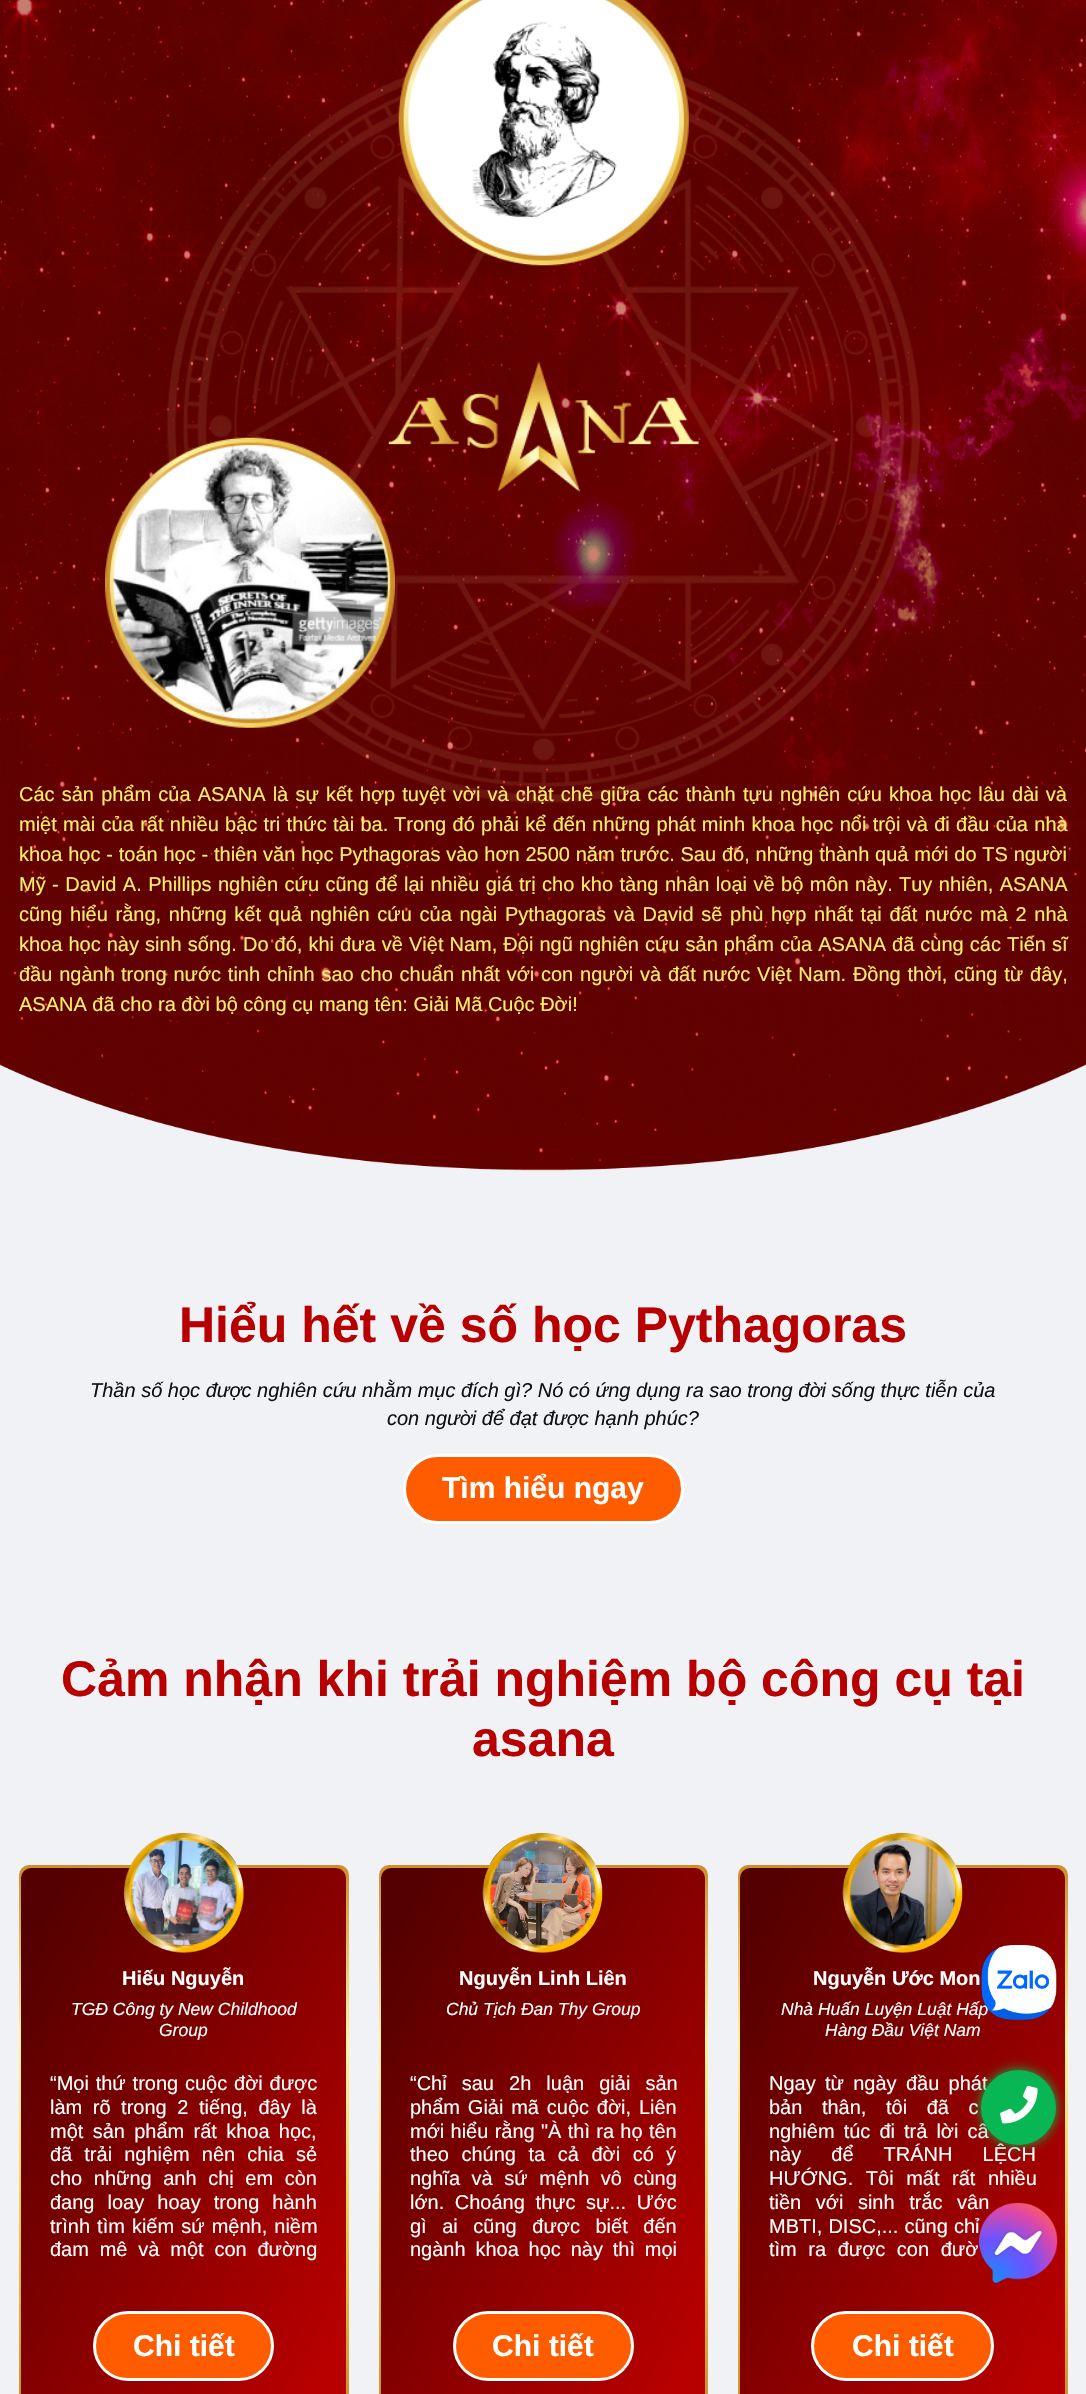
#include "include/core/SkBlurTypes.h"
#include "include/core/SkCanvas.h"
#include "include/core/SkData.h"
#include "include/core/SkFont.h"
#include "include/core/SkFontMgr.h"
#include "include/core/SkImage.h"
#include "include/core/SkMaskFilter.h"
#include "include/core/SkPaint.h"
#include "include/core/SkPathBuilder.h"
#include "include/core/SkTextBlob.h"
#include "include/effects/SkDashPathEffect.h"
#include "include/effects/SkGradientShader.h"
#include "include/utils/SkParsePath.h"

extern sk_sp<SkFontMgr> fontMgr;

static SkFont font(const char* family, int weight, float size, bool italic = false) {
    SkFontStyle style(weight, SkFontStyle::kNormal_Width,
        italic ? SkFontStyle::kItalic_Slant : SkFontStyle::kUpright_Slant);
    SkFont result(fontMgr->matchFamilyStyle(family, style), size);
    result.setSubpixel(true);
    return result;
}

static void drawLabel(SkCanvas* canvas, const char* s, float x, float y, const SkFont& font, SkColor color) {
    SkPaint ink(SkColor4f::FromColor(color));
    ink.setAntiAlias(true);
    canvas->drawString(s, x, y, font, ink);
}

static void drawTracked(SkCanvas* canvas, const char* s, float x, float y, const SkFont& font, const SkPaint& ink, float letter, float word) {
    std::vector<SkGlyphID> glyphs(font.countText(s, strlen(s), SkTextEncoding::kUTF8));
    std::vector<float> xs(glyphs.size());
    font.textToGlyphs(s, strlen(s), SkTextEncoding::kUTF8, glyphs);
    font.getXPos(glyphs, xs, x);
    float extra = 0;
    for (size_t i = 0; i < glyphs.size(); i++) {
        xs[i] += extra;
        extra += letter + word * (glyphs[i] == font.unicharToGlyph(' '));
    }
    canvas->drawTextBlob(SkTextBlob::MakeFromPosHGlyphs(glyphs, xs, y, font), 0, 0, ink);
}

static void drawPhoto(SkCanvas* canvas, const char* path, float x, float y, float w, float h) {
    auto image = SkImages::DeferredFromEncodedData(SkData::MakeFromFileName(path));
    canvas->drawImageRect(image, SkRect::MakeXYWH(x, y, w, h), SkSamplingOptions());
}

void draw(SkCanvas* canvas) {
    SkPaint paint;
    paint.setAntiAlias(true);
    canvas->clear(0xFFF0F2F5);
    drawPhoto(canvas, "assets/img1.png", 0, 0, 1086, 1171);
    SkFont font1 = font("Liberation Sans", 400, 20);
    paint.setColor(0xFFFFF068);
    drawTracked(canvas, "Các sản phẩm của ASANA là sự kết hợp tuyệt vời và chặt chẽ giữa các thành tựu nghiên cứu khoa", 19, 801, font1, paint, 0, 1.6f);
    drawPhoto(canvas, "assets/img3.png", 167, 76, 753, 727);
    drawPhoto(canvas, "assets/img2.png", 398, 0, 291, 266);
    drawPhoto(canvas, "assets/img4.png", 105, 437, 290, 291);
    drawPhoto(canvas, "assets/img5.png", 388, 361, 311, 131);
    drawTracked(canvas, "học lâu dài và", 939, 801, font1, paint, 0, 1.5f);
    drawTracked(canvas, "miệt mài của rất nhiều bậc tri thức tài ba.", 19, 831, font1, paint, 0, 0.75f);
    drawTracked(canvas, "Trong đó phải kể đến những phát minh khoa học nổi trội và đi đầu của nhà", 394, 831, font1, paint, 0, 0.75f);
    drawTracked(canvas, "khoa học - toán học - thiên văn học Pythagoras vào hơn 2500 năm trước. Sau đó, những thành quả mới do TS người", 19, 861, font1, paint, 0, 0.25f);
    drawTracked(canvas, "Mỹ - David A. Phillips nghiên cứu cũng để lại nhiều giá", 19, 891, font1, paint, 0, 0.9f);
    drawTracked(canvas, "trị cho kho tàng nhân loại về bộ môn này.", 519, 891, font1, paint, 0, 0.9f);
    drawTracked(canvas, "Tuy nhiên, ASANA", 899, 891, font1, paint, 0, 0.9f);
    drawTracked(canvas, "cũng hiểu rằng, những kết quả nghiên cứu của ngài Pythagoras và David sẽ phù", 19, 921, font1, paint, 0, 2.1f);
    drawTracked(canvas, "hợp nhất tại đất nước mà 2 nhà", 771, 921, font1, paint, 0, 2.1f);
    drawTracked(canvas, "khoa học này sinh sống.", 19, 951, font1, paint, 0, 0.5f);
    drawTracked(canvas, "Do đó, khi đưa về Việt Nam, Đội ngũ nghiên cứu sản phẩm của ASANA đã cùng các Tiến sĩ", 243, 951, font1, paint, 0, 0.5f);
    drawTracked(canvas, "đầu ngành", 19, 981, font1, paint, 0, 1.25f);
    drawTracked(canvas, "trong nước tinh chỉnh sao cho chuẩn nhất với con người và", 121, 981, font1, paint, 0, 1.25f);
    drawTracked(canvas, "đất nước Việt Nam. Đồng thời, cũng từ đây,", 668, 981, font1, paint, 0, 1.25f);
    drawLabel(canvas, "ASANA đã cho ra đời bộ công cụ mang tên: Giải Mã Cuộc Đời!", 19, 1011, font1, 0xFFFFF068);
    SkFont font2 = font("Liberation Sans", 700, 50);
    drawLabel(canvas, "Hiểu hết về số học Pythagoras", 179, 1342, font2, 0xFFB80000);
    SkFont font3 = font("Liberation Sans", 400, 20, true);
    drawLabel(canvas, "Thần số học được nghiên cứu nhằm mục đích gì? Nó có ứng dụng ra sao trong đời sống thực tiễn của", 90, 1397, font3, 0xFF111111);
    drawLabel(canvas, "con người để đạt được hạnh phúc?", 387, 1425, font3, 0xFF111111);
    paint.setColor(0xFFFF5C00);
    canvas->drawRoundRect(SkRect::MakeXYWH(404.5f, 1455.5f, 278, 67), 33.5f, 33.5f, paint);
    paint.setStroke(true);
    paint.setStrokeWidth(3);
    paint.setColor(0xFFFFFFFF);
    canvas->drawRoundRect(SkRect::MakeXYWH(404.5f, 1455.5f, 278, 67), 33.5f, 33.5f, paint);
    SkFont font4 = font("Liberation Sans", 700, 30);
    drawLabel(canvas, "Tìm hiểu ngay", 442, 1498, font4, 0xFFFFFFFF);
    drawLabel(canvas, "Cảm nhận khi trải nghiệm bộ công cụ tại", 61, 1696, font2, 0xFFB80000);
    drawLabel(canvas, "asana", 472, 1756, font2, 0xFFB80000);
    paint.setStroke(false);
    {
        const SkColor colors[] = {0xFFCD8E2A, 0xFFFEF5A2, 0xFFEFCD58, 0xFFCD8E2A};
        const float stops[] = {0, 0.32f, 0.63f, 1};
        const SkPoint ends[] = {{184, 1865}, {184, 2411}};
        paint.setShader(SkGradientShader::MakeLinear(ends, colors, stops, 4, SkTileMode::kClamp));
        paint.setAlpha(255);
    }
    canvas->drawRoundRect(SkRect::MakeXYWH(19, 1865, 330, 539), 10, 10, paint);
    {
        const SkColor colors[] = {0xFF550000, 0xFFB80000};
        const float stops[] = {0.08f, 0.93f};
        const SkPoint ends[] = {{-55, 2003}, {423, 2273}};
        paint.setShader(SkGradientShader::MakeLinear(ends, colors, stops, 2, SkTileMode::kClamp));
        paint.setAlpha(255);
    }
    canvas->drawRoundRect(SkRect::MakeXYWH(21, 1868, 325, 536), 10, 10, paint);
    drawPhoto(canvas, "assets/img7.png", 131, 1840, 106, 106);
    drawPhoto(canvas, "assets/img6.png", 123, 1832, 121, 121);
    SkFont font5 = font("Liberation Sans", 700, 20);
    drawLabel(canvas, "Hiếu Nguyễn", 122, 1985, font5, 0xFFFFFFFF);
    SkFont font6 = font("Liberation Sans", 400, 17.5f, true);
    drawLabel(canvas, "TGĐ Công ty New Childhood", 71, 2015, font6, 0xFFFFFFFF);
    drawLabel(canvas, "Group", 159, 2036, font6, 0xFFFFFFFF);
    paint.setShader(nullptr);
    paint.setColor(0xFFFFFFFF);
    drawTracked(canvas, "“Mọi thứ trong cuộc đời được", 50, 2090, font1, paint, 0, 1.25f);
    drawTracked(canvas, "làm rõ trong 2 tiếng, đây là", 50, 2114, font1, paint, 0, 5);
    drawTracked(canvas, "một sản phẩm rất khoa học,", 50, 2138, font1, paint, 0, 3.75f);
    drawTracked(canvas, "đã trải nghiệm nên chia sẻ", 50, 2161, font1, paint, 0, 6.5f);
    drawTracked(canvas, "cho những anh chị em còn", 50, 2185, font1, paint, 0, 6);
    drawTracked(canvas, "đang loay hoay trong hành", 50, 2209, font1, paint, 0, 7.5f);
    drawTracked(canvas, "trình tìm kiếm sứ mệnh, niềm", 50, 2233, font1, paint, 0, 1.5f);
    drawTracked(canvas, "đam mê và một con đường", 50, 2256, font1, paint, 0, 5.25f);
    paint.setColor(0xFFFF5C00);
    canvas->drawRoundRect(SkRect::MakeXYWH(94.5f, 2312.5f, 178, 67), 33.5f, 33.5f, paint);
    paint.setStroke(true);
    paint.setColor(0xFFFFFFFF);
    canvas->drawRoundRect(SkRect::MakeXYWH(94.5f, 2312.5f, 178, 67), 33.5f, 33.5f, paint);
    drawLabel(canvas, "Chi tiết", 133, 2356, font4, 0xFFFFFFFF);
    paint.setStroke(false);
    {
        const SkColor colors[] = {0xFFCD8E2A, 0xFFFEF5A2, 0xFFEFCD58, 0xFFCD8E2A};
        const float stops[] = {0, 0.32f, 0.63f, 1};
        const SkPoint ends[] = {{543, 1865}, {543, 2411}};
        paint.setShader(SkGradientShader::MakeLinear(ends, colors, stops, 4, SkTileMode::kClamp));
        paint.setAlpha(255);
    }
    canvas->drawRoundRect(SkRect::MakeXYWH(379, 1865, 329, 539), 10, 10, paint);
    {
        const SkColor colors[] = {0xFF550000, 0xFFB80000};
        const float stops[] = {0.08f, 0.93f};
        const SkPoint ends[] = {{305, 2003}, {782, 2273}};
        paint.setShader(SkGradientShader::MakeLinear(ends, colors, stops, 2, SkTileMode::kClamp));
        paint.setAlpha(255);
    }
    canvas->drawRoundRect(SkRect::MakeXYWH(381, 1868, 324, 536), 10, 10, paint);
    drawPhoto(canvas, "assets/img9.png", 490, 1840, 105, 106);
    drawPhoto(canvas, "assets/img8.png", 482, 1832, 121, 121);
    drawLabel(canvas, "Nguyễn Linh Liên", 459, 1985, font5, 0xFFFFFFFF);
    drawLabel(canvas, "Chủ Tịch Đan Thy Group", 446, 2015, font6, 0xFFFFFFFF);
    paint.setShader(nullptr);
    paint.setColor(0xFFFFFFFF);
    drawTracked(canvas, "“Chỉ sau 2h luận giải sản", 410, 2090, font1, paint, 0, 9.5f);
    drawTracked(canvas, "phẩm Giải mã cuộc đời, Liên", 410, 2114, font1, paint, 0, 2.25f);
    drawTracked(canvas, "mới hiểu rằng \"À thì ra họ tên", 410, 2138, font1, paint, 0, 0.75f);
    canvas->save();
    canvas->clipRect(SkRect::MakeXYWH(410, 2071, 266, 190));
    drawTracked(canvas, "theo chúng ta cả đời có ý", 410, 2161, font1, paint, 0, 7);
    canvas->restore();
    drawTracked(canvas, "nghĩa và sứ mệnh vô cùng", 410, 2185, font1, paint, 0, 6);
    drawTracked(canvas, "lớn. Choáng thực sự... Ước", 410, 2209, font1, paint, 0, 5);
    drawTracked(canvas, "gì ai cũng được biết đến", 410, 2233, font1, paint, 0, 10);
    drawTracked(canvas, "ngành khoa học này thì mọi", 410, 2256, font1, paint, 0, 4.25f);
    paint.setColor(0xFFFF5C00);
    canvas->drawRoundRect(SkRect::MakeXYWH(454.5f, 2312.5f, 178, 67), 33.5f, 33.5f, paint);
    paint.setStroke(true);
    paint.setColor(0xFFFFFFFF);
    canvas->drawRoundRect(SkRect::MakeXYWH(454.5f, 2312.5f, 178, 67), 33.5f, 33.5f, paint);
    drawLabel(canvas, "Chi tiết", 492, 2356, font4, 0xFFFFFFFF);
    paint.setStroke(false);
    {
        const SkColor colors[] = {0xFFCD8E2A, 0xFFFEF5A2, 0xFFEFCD58, 0xFFCD8E2A};
        const float stops[] = {0, 0.32f, 0.63f, 1};
        const SkPoint ends[] = {{903, 1865}, {903, 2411}};
        paint.setShader(SkGradientShader::MakeLinear(ends, colors, stops, 4, SkTileMode::kClamp));
        paint.setAlpha(255);
    }
    canvas->drawRoundRect(SkRect::MakeXYWH(738, 1865, 330, 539), 10, 10, paint);
    {
        const SkColor colors[] = {0xFF550000, 0xFFB80000};
        const float stops[] = {0.08f, 0.93f};
        const SkPoint ends[] = {{663, 2003}, {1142, 2273}};
        paint.setShader(SkGradientShader::MakeLinear(ends, colors, stops, 2, SkTileMode::kClamp));
        paint.setAlpha(255);
    }
    canvas->drawRoundRect(SkRect::MakeXYWH(740, 1868, 325, 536), 10, 10, paint);
    drawPhoto(canvas, "assets/img11.png", 850, 1840, 105, 106);
    drawPhoto(canvas, "assets/img10.png", 842, 1832, 121, 121);
    drawLabel(canvas, "Nguyễn Ước Mon", 813, 1985, font5, 0xFFFFFFFF);
    drawLabel(canvas, "Nhà Huấn Luyện Luật Hấp", 781, 2015, font6, 0xFFFFFFFF);
    drawLabel(canvas, "Hàng Đầu Việt Nam", 825, 2036, font6, 0xFFFFFFFF);
    paint.setShader(nullptr);
    paint.setColor(0xFFFFFFFF);
    drawTracked(canvas, "Ngay từ ngày đầu phát", 769, 2090, font1, paint, 0, 3.75f);
    drawTracked(canvas, "bản thân, tôi đã c", 769, 2114, font1, paint, 0, 14);
    drawTracked(canvas, "nghiêm túc đi trả lời câ", 769, 2138, font1, paint, 0, 3.5f);
    drawTracked(canvas, "này để TRÁNH LỆCH", 769, 2161, font1, paint, 0, 24.5f);
    drawTracked(canvas, "HƯỚNG. Tôi mất rất nhiều", 769, 2185, font1, paint, 0, 7);
    drawTracked(canvas, "tiền với sinh trắc vân", 769, 2209, font1, paint, 0, 9);
    drawTracked(canvas, "MBTI, DISC,... cũng chỉ", 769, 2233, font1, paint, 0, 0.5f);
    drawTracked(canvas, "tìm ra được con đườ", 769, 2256, font1, paint, 0, 6);
    paint.setColor(0xFFFF5C00);
    canvas->drawRoundRect(SkRect::MakeXYWH(812.5f, 2312.5f, 180, 67), 33.5f, 33.5f, paint);
    paint.setStroke(true);
    paint.setColor(0xFFFFFFFF);
    canvas->drawRoundRect(SkRect::MakeXYWH(812.5f, 2312.5f, 180, 67), 33.5f, 33.5f, paint);
    drawLabel(canvas, "Chi tiết", 852, 2356, font4, 0xFFFFFFFF);
    drawPhoto(canvas, "assets/img12.png", 981, 1945, 76, 75);
    paint.setStroke(false);
    paint.setColor(0xFF08B753);
    paint.setMaskFilter(SkMaskFilter::MakeBlur(kNormal_SkBlurStyle, 6));
    canvas->drawRoundRect(SkRect::MakeXYWH(981, 2070, 75, 75), 37.5f, 37.5f, paint);
    paint.setMaskFilter(nullptr);
    canvas->drawCircle(1018.5f, 2107.5f, 37.5f, paint);
    drawPhoto(canvas, "assets/img13.png", 1000, 2086, 38, 38);
    drawPhoto(canvas, "assets/img14.png", 979, 2202, 79, 82);
}
